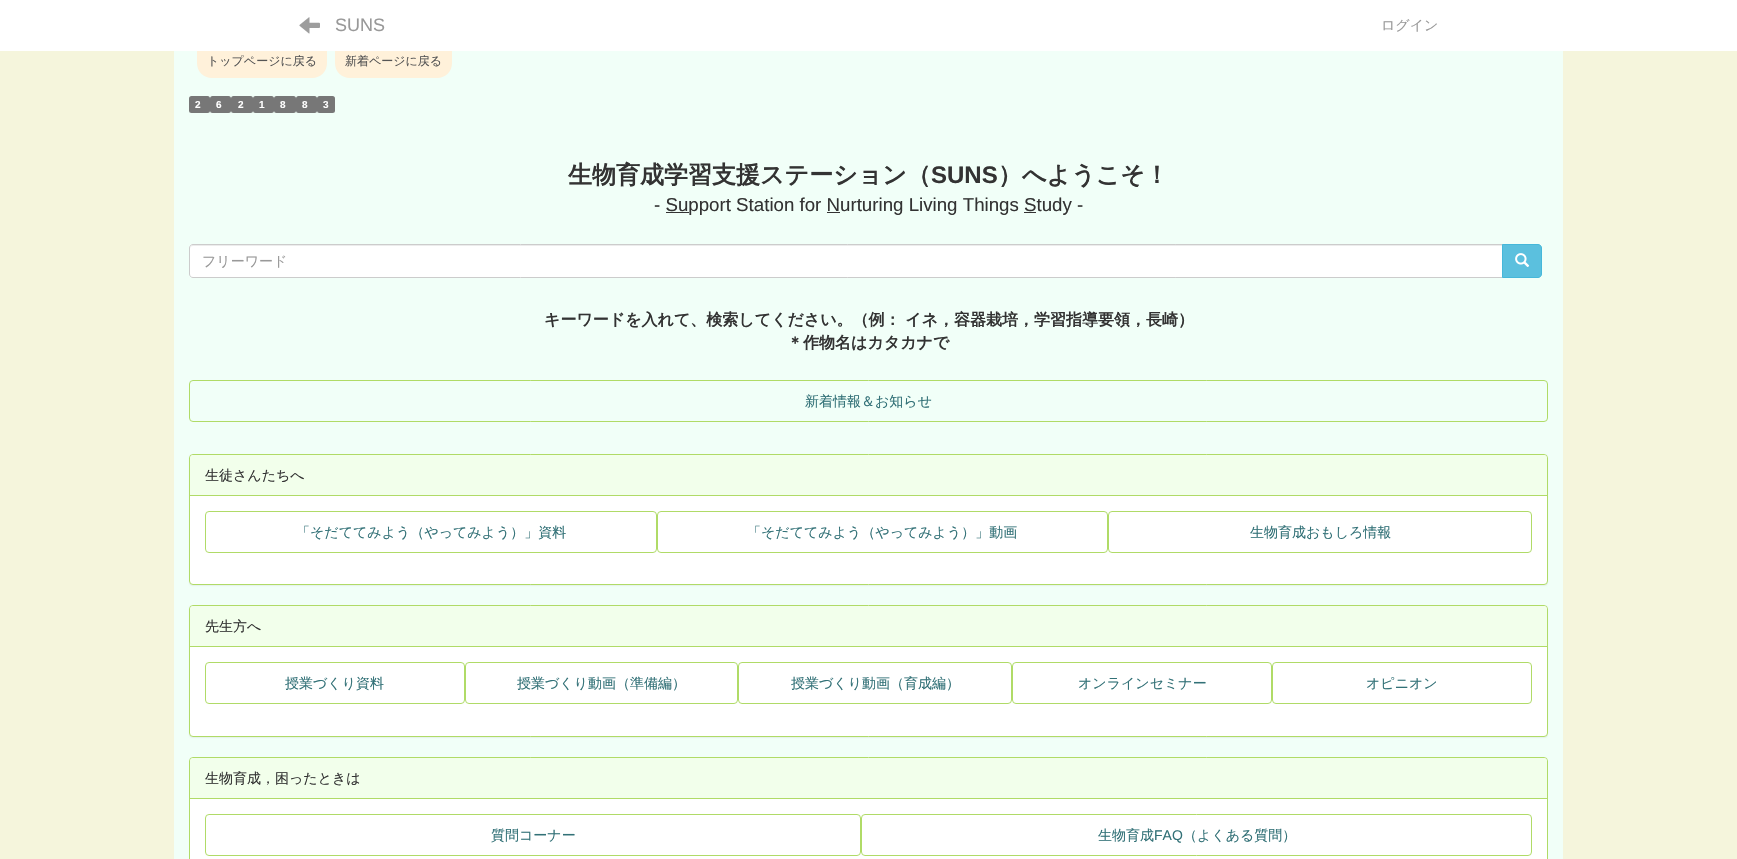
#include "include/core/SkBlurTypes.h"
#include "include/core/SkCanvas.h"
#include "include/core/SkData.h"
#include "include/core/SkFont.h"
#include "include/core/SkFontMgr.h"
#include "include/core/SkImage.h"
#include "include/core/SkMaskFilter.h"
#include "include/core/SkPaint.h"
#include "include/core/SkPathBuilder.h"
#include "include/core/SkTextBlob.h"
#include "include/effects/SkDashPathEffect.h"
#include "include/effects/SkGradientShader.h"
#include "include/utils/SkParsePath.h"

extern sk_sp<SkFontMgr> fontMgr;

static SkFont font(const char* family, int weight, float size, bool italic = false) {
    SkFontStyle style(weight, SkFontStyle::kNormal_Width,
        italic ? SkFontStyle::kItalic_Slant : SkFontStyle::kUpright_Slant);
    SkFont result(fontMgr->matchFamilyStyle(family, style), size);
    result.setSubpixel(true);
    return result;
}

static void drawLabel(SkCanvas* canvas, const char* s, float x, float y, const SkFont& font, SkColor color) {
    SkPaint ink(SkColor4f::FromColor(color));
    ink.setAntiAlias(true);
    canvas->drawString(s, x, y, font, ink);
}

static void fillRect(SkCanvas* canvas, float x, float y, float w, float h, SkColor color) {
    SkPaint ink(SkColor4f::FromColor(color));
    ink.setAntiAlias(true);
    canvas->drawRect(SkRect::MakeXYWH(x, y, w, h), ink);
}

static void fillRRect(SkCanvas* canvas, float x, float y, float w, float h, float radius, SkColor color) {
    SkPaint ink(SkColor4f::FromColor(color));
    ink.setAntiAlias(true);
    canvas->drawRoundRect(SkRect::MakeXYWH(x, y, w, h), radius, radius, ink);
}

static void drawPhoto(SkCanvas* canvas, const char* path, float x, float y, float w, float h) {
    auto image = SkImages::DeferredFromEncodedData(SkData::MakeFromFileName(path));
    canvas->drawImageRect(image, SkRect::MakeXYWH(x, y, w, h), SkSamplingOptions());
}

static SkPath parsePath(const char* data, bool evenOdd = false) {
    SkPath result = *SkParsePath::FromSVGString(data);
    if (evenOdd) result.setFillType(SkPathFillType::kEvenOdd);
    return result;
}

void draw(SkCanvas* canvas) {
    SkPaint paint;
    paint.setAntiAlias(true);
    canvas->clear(0xFFF5F5DC);
    fillRect(canvas, 174, 51, 1389, 808, 0xFFF1FFF8);
    paint.setColor(0xFFFFF1DA);
    canvas->drawPath(parsePath("M197 48H327V63C327 71.5 320.5 78 312 78H212C203.5 78 197 71.5 197 63Z"), paint);
    canvas->drawPath(parsePath("M335 48H452V63C452 71.5 445.5 78 437 78H350C341.5 78 335 71.5 335 63Z"), paint);
    fillRect(canvas, 0, 0, 1737, 51, 0xFFFFFFFF);
    drawPhoto(canvas, "assets/img1.png", 299, 17, 21, 17);
    SkFont font1 = font("Liberation Sans", 400, 18);
    drawLabel(canvas, "SUNS", 335, 31, font1, 0xFF999999);
    SkFont font2 = font("WenQuanYi Zen Hei", 500, 14);
    drawLabel(canvas, "ログイン", 1381, 30, font2, 0xFF999999);
    SkFont font3 = font("WenQuanYi Zen Hei", 500, 12);
    drawLabel(canvas, "トップページに戻る", 207, 65, font3, 0xFF555555);
    drawLabel(canvas, "新着ページに戻る", 345, 65, font3, 0xFF555555);
    fillRRect(canvas, 189, 96, 21, 17, 2.5f, 0xFF777777);
    SkFont font4 = font("Liberation Sans", 700, 10);
    drawLabel(canvas, "2", 195, 108, font4, 0xFFFFFFFF);
    fillRRect(canvas, 210, 96, 21, 17, 2.5f, 0xFF777777);
    drawLabel(canvas, "6", 216, 108, font4, 0xFFFFFFFF);
    fillRRect(canvas, 231, 96, 22, 17, 2.5f, 0xFF777777);
    drawLabel(canvas, "2", 238, 108, font4, 0xFFFFFFFF);
    fillRRect(canvas, 253, 96, 21, 17, 2.5f, 0xFF777777);
    drawLabel(canvas, "1", 259, 108, font4, 0xFFFFFFFF);
    fillRRect(canvas, 274, 96, 22, 17, 2.5f, 0xFF777777);
    drawLabel(canvas, "8", 280, 108, font4, 0xFFFFFFFF);
    fillRRect(canvas, 296, 96, 21, 17, 2.5f, 0xFF777777);
    drawLabel(canvas, "8", 302, 108, font4, 0xFFFFFFFF);
    fillRRect(canvas, 317, 96, 18, 17, 2.5f, 0xFF777777);
    drawLabel(canvas, "3", 323, 108, font4, 0xFFFFFFFF);
    SkFont font5 = font("WenQuanYi Zen Hei", 700, 24);
    drawLabel(canvas, "生物育成学習支援ステーション（", 568, 183, font5, 0xFF333333);
    SkFont font6 = font("Liberation Sans", 700, 24);
    drawLabel(canvas, "SUNS", 931, 183, font6, 0xFF333333);
    drawLabel(canvas, "）へようこそ！", 998, 183, font5, 0xFF333333);
    SkFont font7 = font("Liberation Sans", 400, 18.7f);
    drawLabel(canvas, "- Support Station for Nurturing Living Things Study -", 654, 211, font7, 0xFF333333);
    fillRect(canvas, 666, 212, 23, 1, 0xFF333333);
    fillRect(canvas, 827, 212, 13, 1, 0xFF333333);
    fillRect(canvas, 1024, 212, 12, 1, 0xFF333333);
    paint.setColor(0xFFFFFFFF);
    canvas->drawPath(parsePath("M193 244H1503V278H193C191 278 189 276 189 274V248C189 246 191 244 193 244Z"), paint);
    paint.setColor(0xFFECECEC);
    canvas->drawPath(parsePath("M193 246H1502V245H193C191 245 190 247 190 249C190 247 191 246 193 246Z"), paint);
    paint.setStroke(true);
    paint.setStrokeWidth(1);
    paint.setColor(0xFFCCCCCC);
    canvas->drawPath(parsePath("M193 244.5H1502.5V277.5H193C191 277.5 189.5 276 189.5 274V248C189.5 246 191 244.5 193 244.5Z"), paint);
    drawLabel(canvas, "フリーワード", 202, 266, font2, 0xFF999999);
    paint.setStroke(false);
    paint.setColor(0xFF5BC0DE);
    canvas->drawPath(parsePath("M1502.5 244.5H1538C1540 244.5 1541.5 246 1541.5 248V274C1541.5 276 1540 277.5 1538 277.5H1502.5Z"), paint);
    paint.setStroke(true);
    paint.setColor(0xFF46B8DA);
    canvas->drawPath(parsePath("M1502.5 244.5H1538C1540 244.5 1541.5 246 1541.5 248V274C1541.5 276 1540 277.5 1538 277.5H1502.5Z"), paint);
    drawPhoto(canvas, "assets/img2.png", 1515, 253, 15, 14);
    SkFont font8 = font("WenQuanYi Zen Hei", 700, 16);
    drawLabel(canvas, "キーワードを入れて、検索してください。（例： イネ，容器栽培，学習指導要領，長崎）", 544, 325, font8, 0xFF333333);
    drawLabel(canvas, "＊作物名はカタカナで", 787, 348, font8, 0xFF333333);
    paint.setColor(0xFFB0DB67);
    canvas->drawRoundRect(SkRect::MakeXYWH(189.5f, 380.5f, 1358, 41), 3.5f, 3.5f, paint);
    drawLabel(canvas, "新着情報＆お知らせ", 805, 406, font2, 0xFF327177);
    paint.setStroke(false);
    paint.setColor(0x0D000000);
    paint.setMaskFilter(SkMaskFilter::MakeBlur(kNormal_SkBlurStyle, 0.5f));
    canvas->drawRoundRect(SkRect::MakeXYWH(189, 455, 1359, 131), 4, 4, paint);
    paint.setMaskFilter(nullptr);
    paint.setColor(0xFFFFFFFF);
    canvas->drawRoundRect(SkRect::MakeXYWH(189.5f, 454.5f, 1358, 130), 3.5f, 3.5f, paint);
    paint.setStroke(true);
    paint.setColor(0xFFB0DB67);
    canvas->drawRoundRect(SkRect::MakeXYWH(189.5f, 454.5f, 1358, 130), 3.5f, 3.5f, paint);
    paint.setStroke(false);
    paint.setColor(0xFFF2FFEB);
    canvas->drawPath(parsePath("M193 455H1544C1545.5 455 1547 456.5 1547 458V496H190V458C190 456.5 191.5 455 193 455Z"), paint);
    fillRect(canvas, 190, 495, 1357, 1, 0xFFB0DB67);
    drawLabel(canvas, "生徒さんたちへ", 205, 480, font2, 0xFF333333);
    paint.setStroke(true);
    paint.setColor(0xFFB0DB67);
    canvas->drawRoundRect(SkRect::MakeXYWH(205.5f, 511.5f, 451, 41), 3.5f, 3.5f, paint);
    drawLabel(canvas, "「そだててみよう（やってみよう）」資料", 296, 537, font2, 0xFF327177);
    canvas->drawRoundRect(SkRect::MakeXYWH(657.5f, 511.5f, 450, 41), 3.5f, 3.5f, paint);
    drawLabel(canvas, "「そだててみよう（やってみよう）」動画", 747, 537, font2, 0xFF327177);
    canvas->drawRoundRect(SkRect::MakeXYWH(1108.5f, 511.5f, 423, 41), 3.5f, 3.5f, paint);
    drawLabel(canvas, "生物育成おもしろ情報", 1250, 537, font2, 0xFF327177);
    paint.setStroke(false);
    paint.setColor(0x0D000000);
    paint.setMaskFilter(SkMaskFilter::MakeBlur(kNormal_SkBlurStyle, 0.5f));
    canvas->drawRoundRect(SkRect::MakeXYWH(189, 606, 1359, 132), 4, 4, paint);
    paint.setMaskFilter(nullptr);
    paint.setColor(0xFFFFFFFF);
    canvas->drawRoundRect(SkRect::MakeXYWH(189.5f, 605.5f, 1358, 131), 3.5f, 3.5f, paint);
    paint.setStroke(true);
    paint.setColor(0xFFB0DB67);
    canvas->drawRoundRect(SkRect::MakeXYWH(189.5f, 605.5f, 1358, 131), 3.5f, 3.5f, paint);
    paint.setStroke(false);
    paint.setColor(0xFFF2FFEB);
    canvas->drawPath(parsePath("M193 606H1544C1545.5 606 1547 607.5 1547 609V647H190V609C190 607.5 191.5 606 193 606Z"), paint);
    fillRect(canvas, 190, 646, 1357, 1, 0xFFB0DB67);
    drawLabel(canvas, "先生方へ", 205, 631, font2, 0xFF333333);
    paint.setStroke(true);
    paint.setColor(0xFFB0DB67);
    canvas->drawRoundRect(SkRect::MakeXYWH(205.5f, 662.5f, 259, 41), 3.5f, 3.5f, paint);
    drawLabel(canvas, "授業づくり資料", 285, 688, font2, 0xFF327177);
    canvas->drawRoundRect(SkRect::MakeXYWH(465.5f, 662.5f, 272, 41), 3.5f, 3.5f, paint);
    drawLabel(canvas, "授業づくり動画（準備編）", 517, 688, font2, 0xFF327177);
    canvas->drawRoundRect(SkRect::MakeXYWH(738.5f, 662.5f, 273, 41), 3.5f, 3.5f, paint);
    drawLabel(canvas, "授業づくり動画（育成編）", 791, 688, font2, 0xFF327177);
    canvas->drawRoundRect(SkRect::MakeXYWH(1012.5f, 662.5f, 259, 41), 3.5f, 3.5f, paint);
    drawLabel(canvas, "オンラインセミナー", 1078, 688, font2, 0xFF327177);
    canvas->drawRoundRect(SkRect::MakeXYWH(1272.5f, 662.5f, 259, 41), 3.5f, 3.5f, paint);
    drawLabel(canvas, "オピニオン", 1366, 688, font2, 0xFF327177);
    paint.setStroke(false);
    paint.setColor(0xFFFFFFFF);
    canvas->drawRoundRect(SkRect::MakeXYWH(189.5f, 757.5f, 1358, 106), 3.5f, 3.5f, paint);
    paint.setStroke(true);
    paint.setColor(0xFFB0DB67);
    canvas->drawRoundRect(SkRect::MakeXYWH(189.5f, 757.5f, 1358, 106), 3.5f, 3.5f, paint);
    paint.setStroke(false);
    paint.setColor(0xFFF2FFEB);
    canvas->drawPath(parsePath("M193 758H1544C1545.5 758 1547 759.5 1547 761V799H190V761C190 759.5 191.5 758 193 758Z"), paint);
    fillRect(canvas, 190, 798, 1357, 1, 0xFFB0DB67);
    drawLabel(canvas, "生物育成，困ったときは", 205, 783, font2, 0xFF333333);
    paint.setStroke(true);
    paint.setColor(0xFFB0DB67);
    canvas->drawRoundRect(SkRect::MakeXYWH(205.5f, 814.5f, 655, 41), 3.5f, 3.5f, paint);
    drawLabel(canvas, "質問コーナー", 491, 840, font2, 0xFF327177);
    canvas->drawRoundRect(SkRect::MakeXYWH(861.5f, 814.5f, 670, 41), 3.5f, 3.5f, paint);
    drawLabel(canvas, "生物育成", 1098, 840, font2, 0xFF327177);
    SkFont font9 = font("Liberation Sans", 400, 14);
    drawLabel(canvas, "FAQ", 1154, 840, font9, 0xFF327177);
    drawLabel(canvas, "（よくある質問）", 1183, 840, font2, 0xFF327177);
}
